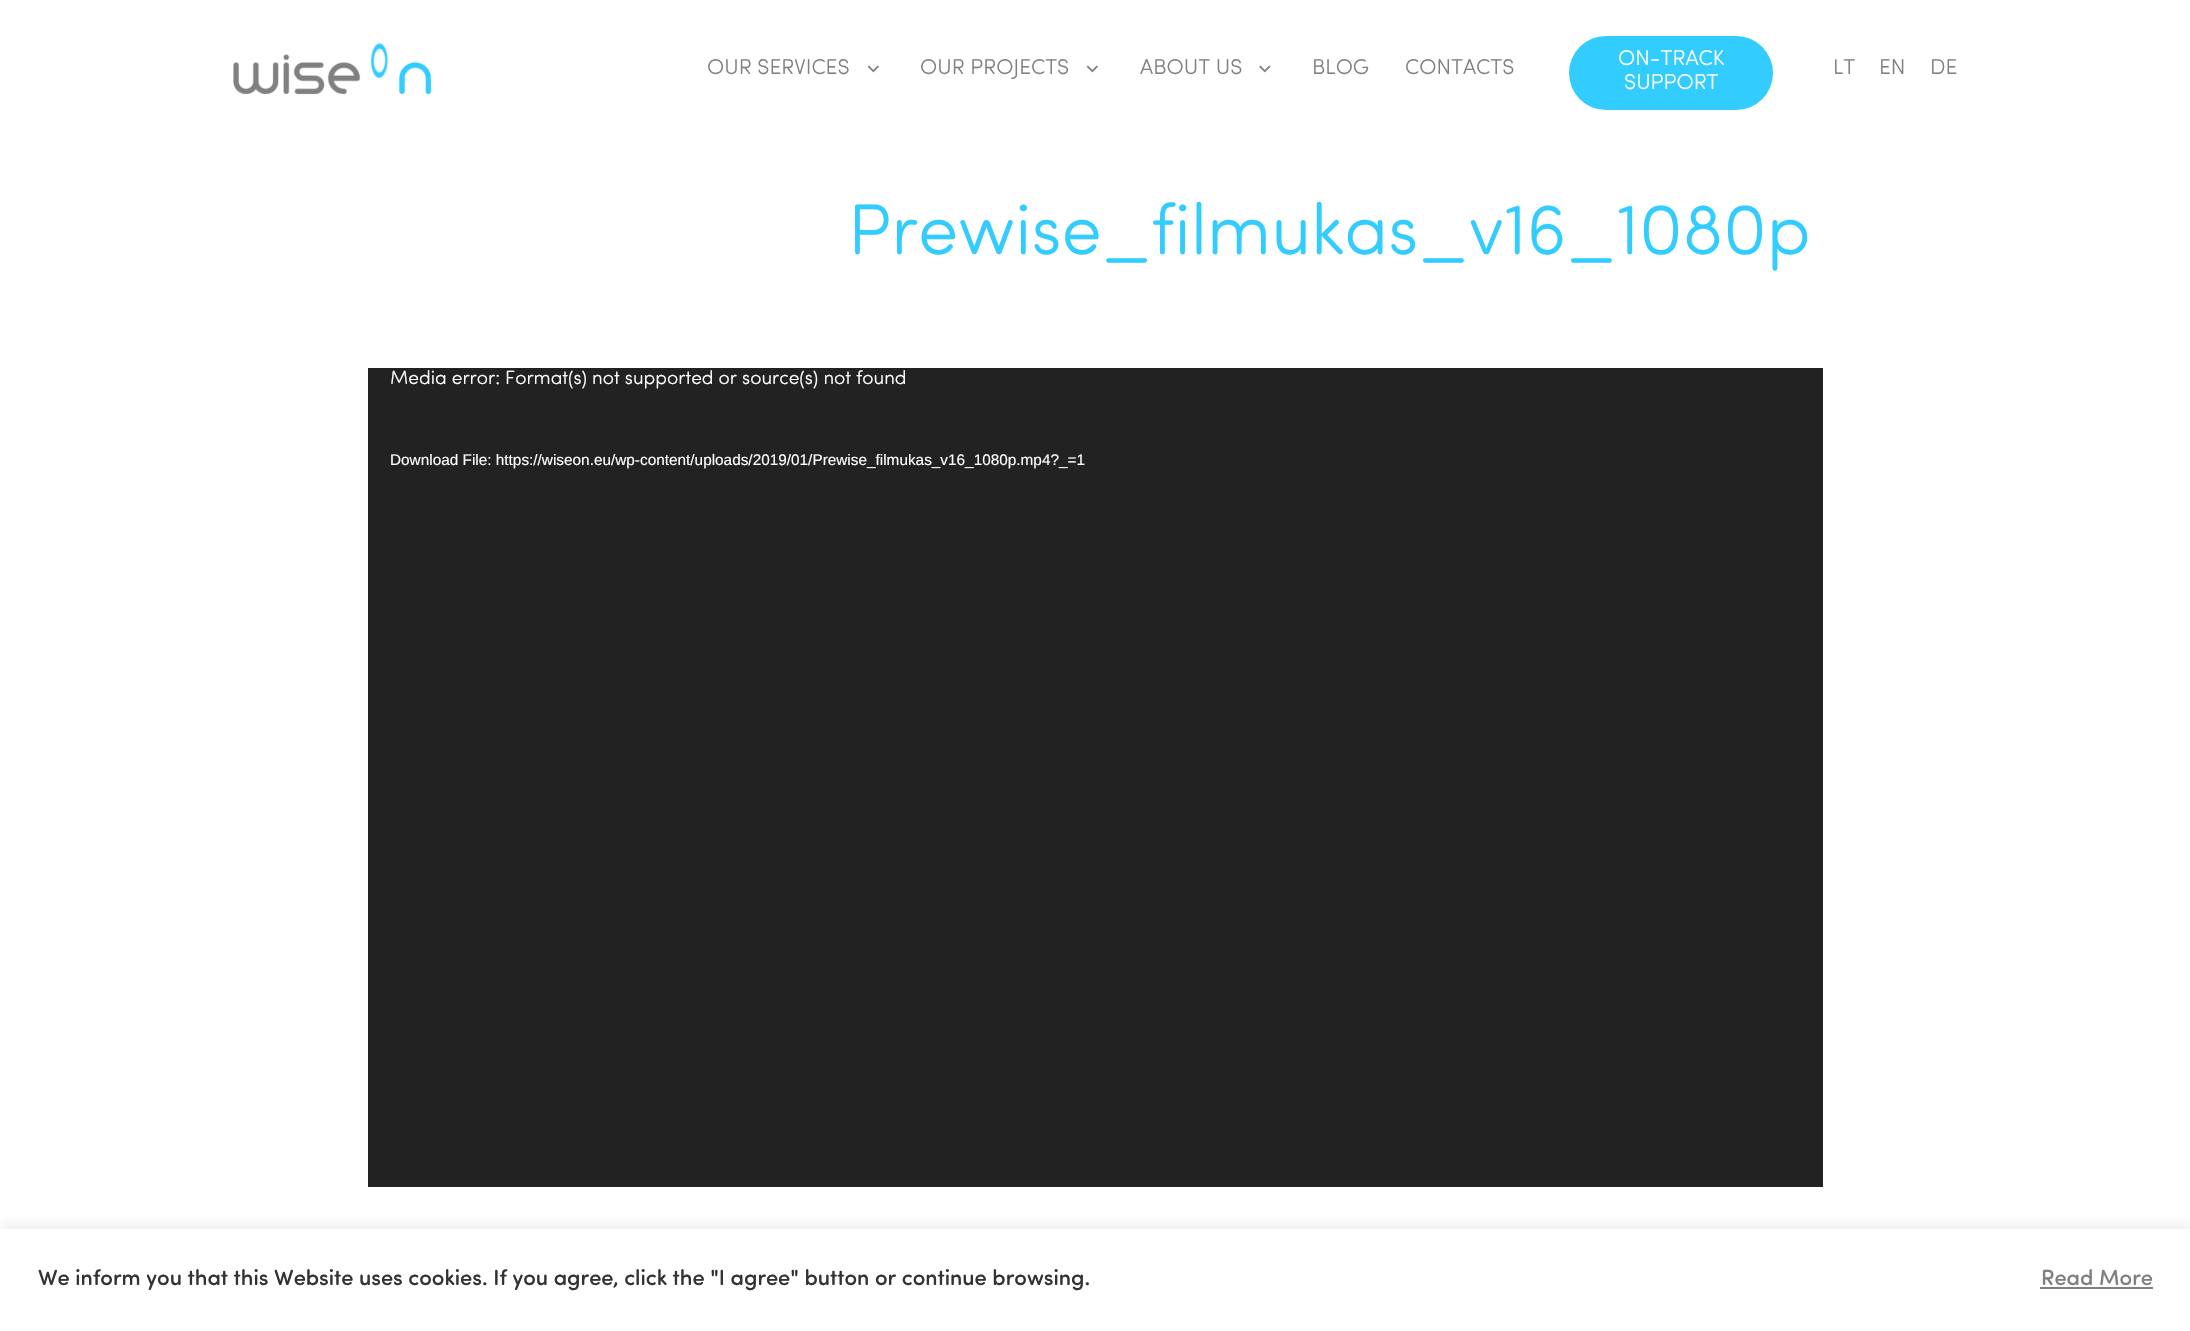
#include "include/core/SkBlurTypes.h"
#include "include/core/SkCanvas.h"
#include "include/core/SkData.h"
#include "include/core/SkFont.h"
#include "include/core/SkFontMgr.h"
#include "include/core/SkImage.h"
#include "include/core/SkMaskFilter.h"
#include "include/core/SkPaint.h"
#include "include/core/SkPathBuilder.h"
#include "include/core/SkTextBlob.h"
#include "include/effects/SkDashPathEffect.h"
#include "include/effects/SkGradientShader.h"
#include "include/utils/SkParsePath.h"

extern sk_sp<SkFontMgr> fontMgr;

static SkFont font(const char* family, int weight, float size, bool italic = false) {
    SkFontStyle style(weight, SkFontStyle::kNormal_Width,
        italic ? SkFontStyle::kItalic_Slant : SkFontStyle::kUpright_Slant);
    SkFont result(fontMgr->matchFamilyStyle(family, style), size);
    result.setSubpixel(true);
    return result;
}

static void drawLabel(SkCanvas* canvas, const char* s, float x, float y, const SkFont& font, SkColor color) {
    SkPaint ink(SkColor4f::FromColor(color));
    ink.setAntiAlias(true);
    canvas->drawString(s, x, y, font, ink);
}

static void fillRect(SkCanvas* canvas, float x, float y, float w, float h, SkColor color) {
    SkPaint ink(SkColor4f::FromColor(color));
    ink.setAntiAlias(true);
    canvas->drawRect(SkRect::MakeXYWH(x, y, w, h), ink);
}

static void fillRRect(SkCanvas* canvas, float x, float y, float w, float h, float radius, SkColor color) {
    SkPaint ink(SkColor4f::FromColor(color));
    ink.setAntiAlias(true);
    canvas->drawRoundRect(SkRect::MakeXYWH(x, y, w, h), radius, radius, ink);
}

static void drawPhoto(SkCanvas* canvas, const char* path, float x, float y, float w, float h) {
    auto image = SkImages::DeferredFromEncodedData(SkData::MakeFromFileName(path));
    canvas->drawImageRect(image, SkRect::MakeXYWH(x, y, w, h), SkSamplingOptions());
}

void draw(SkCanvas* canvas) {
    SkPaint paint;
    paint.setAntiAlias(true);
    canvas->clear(0xFFFFFFFF);
    drawPhoto(canvas, "assets/img1.png", 233, 42, 199, 53);
    SkFont font1 = font("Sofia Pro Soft", 300, 21.5f);
    drawLabel(canvas, "OUR SERVICES", 707, 74, font1, 0xFF808080);
    drawPhoto(canvas, "assets/img2.png", 867, 65, 12, 8);
    drawLabel(canvas, "OUR PROJECTS", 920, 74, font1, 0xFF808080);
    drawPhoto(canvas, "assets/img2.png", 1086, 65, 12, 8);
    drawLabel(canvas, "ABOUT US", 1140, 74, font1, 0xFF808080);
    drawPhoto(canvas, "assets/img3.png", 1259, 65, 12, 8);
    drawLabel(canvas, "BLOG", 1312, 74, font1, 0xFF808080);
    drawLabel(canvas, "CONTACTS", 1405, 74, font1, 0xFF808080);
    fillRRect(canvas, 1569, 36, 204, 74, 37, 0xFF33CCFF);
    drawLabel(canvas, "ON-TRACK", 1618, 65, font1, 0xFFFFFFFF);
    drawLabel(canvas, "SUPPORT", 1624, 89, font1, 0xFFFFFFFF);
    drawLabel(canvas, "LT", 1833, 74, font1, 0xFF808080);
    drawLabel(canvas, "EN", 1879, 74, font1, 0xFF808080);
    drawLabel(canvas, "DE", 1930, 74, font1, 0xFF808080);
    SkFont font2 = font("Sofia Pro Soft", 300, 72);
    drawLabel(canvas, "Prewise_filmukas_v16_1080p", 848, 254, font2, 0xFF33CCFF);
    fillRect(canvas, 368, 368, 1455, 819, 0xFF222222);
    SkFont font3 = font("Sofia Pro Soft", 300, 19.2f);
    drawLabel(canvas, "Media error: Format(s) not supported or source(s) not found", 390, 384, font3, 0xFFFFFFFF);
    SkFont font4 = font("Liberation Sans", 400, 15.35f);
    drawLabel(canvas, "Download File: https://wiseon.eu/wp-content/uploads/2019/01/Prewise_filmukas_v16_1080p.mp4?_=1", 390, 465, font4, 0xFFFFFFFF);
    canvas->save();
    canvas->clipRect(SkRect::MakeXYWH(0, 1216, 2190, 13));
    paint.setColor(0x4DACABAB);
    paint.setMaskFilter(SkMaskFilter::MakeBlur(kNormal_SkBlurStyle, 7.5f));
    canvas->drawRect(SkRect::MakeXYWH(0, 1227, 2190, 104), paint);
    paint.setMaskFilter(nullptr);
    canvas->restore();
    SkFont font5 = font("Sofia Pro Soft", 500, 22);
    drawLabel(canvas, "We inform you that this Website uses cookies. If you agree, click the \"I agree\" button or continue browsing.", 38, 1285, font5, 0xFF333333);
    drawLabel(canvas, "Read More", 2041, 1285, font5, 0xFF808080);
    fillRect(canvas, 2040, 1287, 113, 2, 0xFF808080);
}
